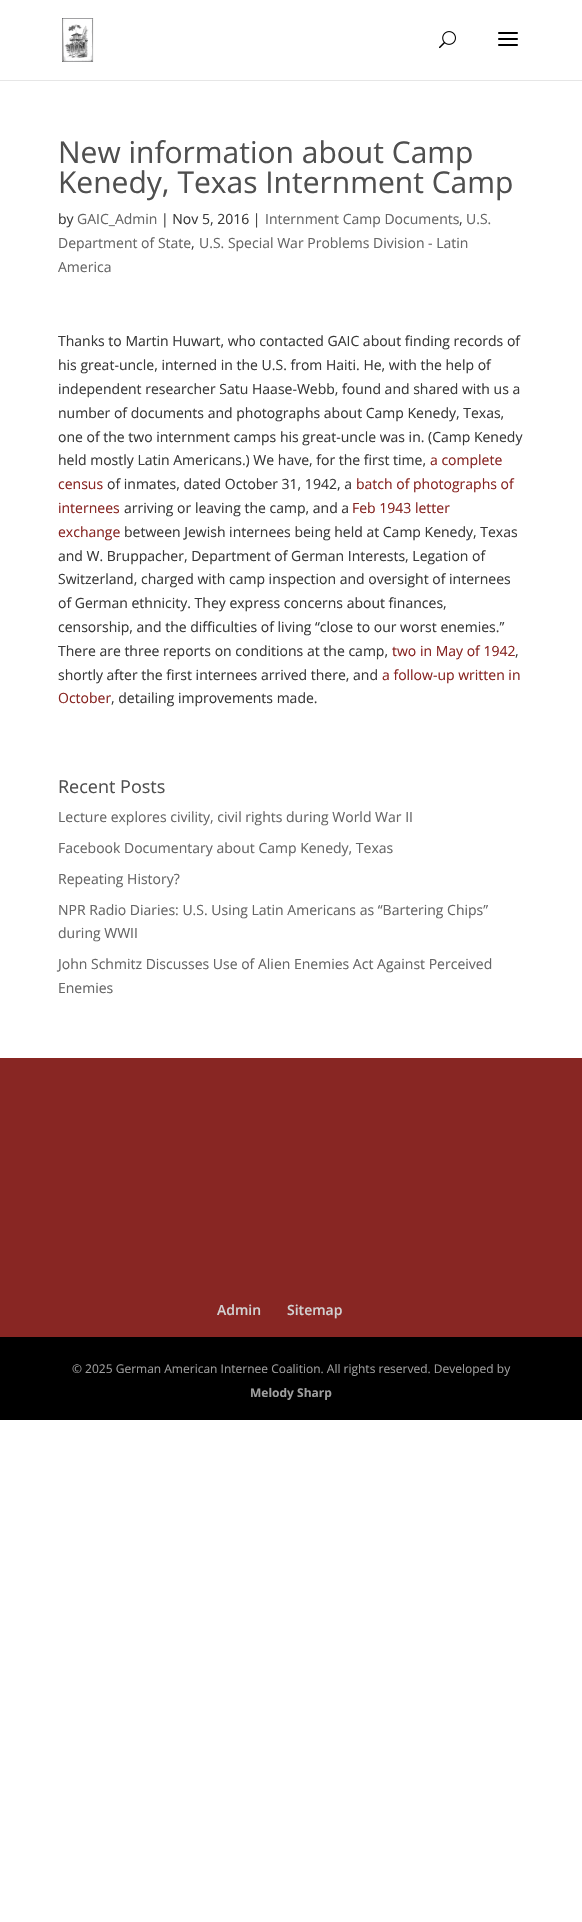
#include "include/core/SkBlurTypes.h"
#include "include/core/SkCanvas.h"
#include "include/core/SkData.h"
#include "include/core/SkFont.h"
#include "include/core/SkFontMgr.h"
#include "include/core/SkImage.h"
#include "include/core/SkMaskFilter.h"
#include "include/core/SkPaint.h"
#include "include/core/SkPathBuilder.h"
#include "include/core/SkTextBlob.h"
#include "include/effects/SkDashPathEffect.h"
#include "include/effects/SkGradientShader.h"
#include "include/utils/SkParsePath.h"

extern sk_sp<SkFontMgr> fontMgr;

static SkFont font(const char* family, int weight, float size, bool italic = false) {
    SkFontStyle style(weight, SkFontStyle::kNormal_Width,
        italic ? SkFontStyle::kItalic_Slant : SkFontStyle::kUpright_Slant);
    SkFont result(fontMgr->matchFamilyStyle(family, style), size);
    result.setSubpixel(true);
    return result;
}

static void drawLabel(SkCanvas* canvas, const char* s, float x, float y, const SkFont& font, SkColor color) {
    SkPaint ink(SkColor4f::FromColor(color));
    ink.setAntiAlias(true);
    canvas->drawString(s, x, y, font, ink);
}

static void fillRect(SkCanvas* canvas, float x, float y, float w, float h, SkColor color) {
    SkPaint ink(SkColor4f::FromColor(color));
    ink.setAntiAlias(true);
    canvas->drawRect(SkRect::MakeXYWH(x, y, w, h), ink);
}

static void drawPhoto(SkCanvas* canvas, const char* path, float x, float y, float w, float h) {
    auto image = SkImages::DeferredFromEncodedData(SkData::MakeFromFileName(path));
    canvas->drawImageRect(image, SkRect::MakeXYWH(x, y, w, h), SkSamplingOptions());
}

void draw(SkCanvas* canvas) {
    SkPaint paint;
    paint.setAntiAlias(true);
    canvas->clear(0xFFFFFFFF);
    fillRect(canvas, 0, 80, 582, 1, 0xFFE6E6E6);
    drawPhoto(canvas, "assets/img1.png", 62, 18, 32, 44);
    drawPhoto(canvas, "assets/img2.png", 439, 31, 17, 18);
    drawPhoto(canvas, "assets/img3.png", 498, 32, 20, 14);
    SkFont font1 = font("Open Sans", 400, 30);
    drawLabel(canvas, "New information about Camp", 58, 163, font1, 0xFF4F4F4F);
    drawLabel(canvas, "Kenedy, Texas Internment Camp", 58, 193, font1, 0xFF4F4F4F);
    SkFont font2 = font("Open Sans", 400, 14);
    drawLabel(canvas, "by", 58, 224, font2, 0xFF3A3A3A);
    drawLabel(canvas, "GAIC_Admin", 77, 224, font2, 0xFF666666);
    drawLabel(canvas, "| Nov 5, 2016 |", 161, 224, font2, 0xFF3A3A3A);
    drawLabel(canvas, "Internment Camp Documents", 265, 224, font2, 0xFF666666);
    drawLabel(canvas, ",", 459, 224, font2, 0xFF3A3A3A);
    drawLabel(canvas, "U.S.", 466, 224, font2, 0xFF666666);
    drawLabel(canvas, "Department of State", 58, 248, font2, 0xFF666666);
    drawLabel(canvas, ",", 191, 248, font2, 0xFF3A3A3A);
    drawLabel(canvas, "U.S. Special War Problems Division - Latin", 199, 248, font2, 0xFF666666);
    drawLabel(canvas, "America", 58, 272, font2, 0xFF666666);
    drawLabel(canvas, "Thanks to Martin Huwart, who contacted GAIC about finding records of", 58, 346, font2, 0xFF3A3A3A);
    drawLabel(canvas, "his great-uncle, interned in the U.S. from Haiti. He, with the help of", 58, 370, font2, 0xFF3A3A3A);
    drawLabel(canvas, "independent researcher Satu Haase-Webb, found and shared with us a", 58, 394, font2, 0xFF3A3A3A);
    drawLabel(canvas, "number of documents and photographs about Camp Kenedy, Texas,", 58, 418, font2, 0xFF3A3A3A);
    drawLabel(canvas, "one of the two internment camps his great-uncle was in. (Camp Kenedy", 58, 442, font2, 0xFF3A3A3A);
    drawLabel(canvas, "held mostly Latin Americans.) We have, for the first time,", 58, 465, font2, 0xFF3A3A3A);
    drawLabel(canvas, "a complete", 430, 465, font2, 0xFF882623);
    drawLabel(canvas, "census", 58, 489, font2, 0xFF882623);
    drawLabel(canvas, "of inmates, dated October 31, 1942, a", 107, 489, font2, 0xFF3A3A3A);
    drawLabel(canvas, "batch of photographs of", 356, 489, font2, 0xFF882623);
    drawLabel(canvas, "internees", 58, 513, font2, 0xFF882623);
    drawLabel(canvas, "arriving or leaving the camp, and a", 124, 513, font2, 0xFF3A3A3A);
    drawLabel(canvas, "Feb 1943 letter", 352, 513, font2, 0xFF882623);
    drawLabel(canvas, "exchange", 58, 537, font2, 0xFF882623);
    drawLabel(canvas, "between Jewish internees being held at Camp Kenedy, Texas", 124, 537, font2, 0xFF3A3A3A);
    drawLabel(canvas, "and W. Bruppacher, Department of German Interests, Legation of", 58, 561, font2, 0xFF3A3A3A);
    drawLabel(canvas, "Switzerland, charged with camp inspection and oversight of internees", 58, 584, font2, 0xFF3A3A3A);
    drawLabel(canvas, "of German ethnicity. They express concerns about finances,", 58, 608, font2, 0xFF3A3A3A);
    drawLabel(canvas, "censorship, and the difficulties of living “close to our worst enemies.”", 58, 632, font2, 0xFF3A3A3A);
    drawLabel(canvas, "There are three reports on conditions at the camp,", 58, 656, font2, 0xFF3A3A3A);
    drawLabel(canvas, "two in May of 1942", 392, 656, font2, 0xFF882623);
    drawLabel(canvas, ",", 515, 656, font2, 0xFF3A3A3A);
    drawLabel(canvas, "shortly after the first internees arrived there, and", 58, 680, font2, 0xFF3A3A3A);
    drawLabel(canvas, "a follow-up written in", 382, 680, font2, 0xFF882623);
    drawLabel(canvas, "October", 58, 703, font2, 0xFF882623);
    drawLabel(canvas, ", detailing improvements made.", 111, 703, font2, 0xFF3A3A3A);
    SkFont font3 = font("Open Sans", 400, 18);
    drawLabel(canvas, "Recent Posts", 58, 793, font3, 0xFF4F4F4F);
    drawLabel(canvas, "Lecture explores civility, civil rights during World War II", 58, 822, font2, 0xFF666666);
    drawLabel(canvas, "Facebook Documentary about Camp Kenedy, Texas", 58, 853, font2, 0xFF666666);
    drawLabel(canvas, "Repeating History?", 58, 884, font2, 0xFF666666);
    drawLabel(canvas, "NPR Radio Diaries: U.S. Using Latin Americans as “Bartering Chips”", 58, 915, font2, 0xFF666666);
    drawLabel(canvas, "during WWII", 58, 938, font2, 0xFF666666);
    drawLabel(canvas, "John Schmitz Discusses Use of Alien Enemies Act Against Perceived", 58, 969, font2, 0xFF666666);
    drawLabel(canvas, "Enemies", 58, 993, font2, 0xFF666666);
    fillRect(canvas, 0, 1058, 582, 279, 0xFF882623);
    SkFont font4 = font("Open Sans", 600, 14);
    drawLabel(canvas, "Admin", 217, 1315, font4, 0xFFD1D1D1);
    drawLabel(canvas, "Sitemap", 287, 1315, font4, 0xFFD1D1D1);
    fillRect(canvas, 0, 1337, 582, 83, 0xFF000000);
    SkFont font5 = font("Open Sans", 400, 12);
    drawLabel(canvas, "© 2025 German American Internee Coalition. All rights reserved. Developed by", 72, 1373, font5, 0xFF9E9E9E);
    SkFont font6 = font("Open Sans", 700, 12);
    drawLabel(canvas, "Melody Sharp", 250, 1397, font6, 0xFF9E9E9E);
}
